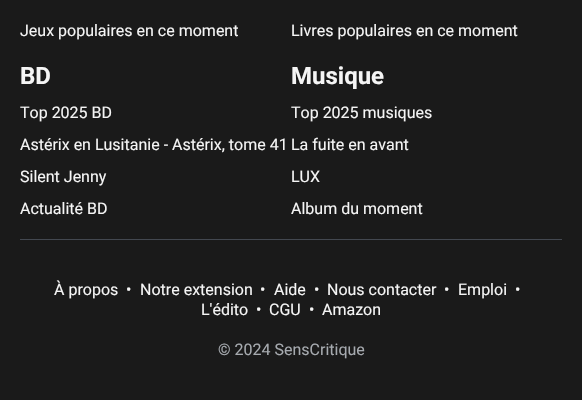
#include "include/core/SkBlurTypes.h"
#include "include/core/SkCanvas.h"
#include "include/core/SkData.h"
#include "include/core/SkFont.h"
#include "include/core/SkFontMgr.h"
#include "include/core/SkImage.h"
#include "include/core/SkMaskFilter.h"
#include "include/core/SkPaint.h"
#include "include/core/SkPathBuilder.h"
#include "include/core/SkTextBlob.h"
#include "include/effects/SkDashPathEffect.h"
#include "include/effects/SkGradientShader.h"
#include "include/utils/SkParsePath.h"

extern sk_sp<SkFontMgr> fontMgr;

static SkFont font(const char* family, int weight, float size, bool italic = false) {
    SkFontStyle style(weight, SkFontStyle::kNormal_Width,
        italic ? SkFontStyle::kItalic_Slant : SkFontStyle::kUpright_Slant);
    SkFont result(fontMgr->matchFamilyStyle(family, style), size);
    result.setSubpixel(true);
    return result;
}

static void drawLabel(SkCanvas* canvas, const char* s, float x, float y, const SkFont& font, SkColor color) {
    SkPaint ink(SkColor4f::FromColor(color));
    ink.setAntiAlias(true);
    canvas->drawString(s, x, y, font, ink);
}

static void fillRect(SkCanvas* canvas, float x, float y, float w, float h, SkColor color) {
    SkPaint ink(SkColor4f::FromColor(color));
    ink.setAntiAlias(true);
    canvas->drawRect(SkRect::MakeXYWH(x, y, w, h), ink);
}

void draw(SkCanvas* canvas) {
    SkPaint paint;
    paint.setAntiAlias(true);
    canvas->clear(0xFF1A1A1A);
    fillRect(canvas, 20, 239, 542, 1, 0xFF434850);
    SkFont font1 = font("Roboto", 400, 16);
    drawLabel(canvas, "Jeux populaires en ce moment", 20, 36, font1, 0xFFF5F5F5);
    drawLabel(canvas, "Livres populaires en ce moment", 291, 36, font1, 0xFFF5F5F5);
    SkFont font2 = font("Roboto", 700, 24);
    drawLabel(canvas, "BD", 20, 84, font2, 0xFFF5F5F5);
    drawLabel(canvas, "Top 2025 BD", 20, 118, font1, 0xFFF5F5F5);
    drawLabel(canvas, "Astérix en Lusitanie - Astérix, tome 41", 20, 150, font1, 0xFFF5F5F5);
    drawLabel(canvas, "Silent Jenny", 20, 182, font1, 0xFFF5F5F5);
    drawLabel(canvas, "Actualité BD", 20, 214, font1, 0xFFF5F5F5);
    drawLabel(canvas, "Musique", 291, 84, font2, 0xFFF5F5F5);
    drawLabel(canvas, "Top 2025 musiques", 291, 118, font1, 0xFFF5F5F5);
    drawLabel(canvas, "La fuite en avant", 291, 150, font1, 0xFFF5F5F5);
    drawLabel(canvas, "LUX", 291, 182, font1, 0xFFF5F5F5);
    drawLabel(canvas, "Album du moment", 291, 214, font1, 0xFFF5F5F5);
    drawLabel(canvas, "À propos", 54, 295, font1, 0xFFF5F5F5);
    drawLabel(canvas, "•", 126, 295, font1, 0xFFF5F5F5);
    drawLabel(canvas, "Notre extension", 140, 295, font1, 0xFFF5F5F5);
    drawLabel(canvas, "•", 260, 295, font1, 0xFFF5F5F5);
    drawLabel(canvas, "Aide", 274, 295, font1, 0xFFF5F5F5);
    drawLabel(canvas, "•", 314, 295, font1, 0xFFF5F5F5);
    drawLabel(canvas, "Nous contacter", 327, 295, font1, 0xFFF5F5F5);
    drawLabel(canvas, "•", 444, 295, font1, 0xFFF5F5F5);
    drawLabel(canvas, "Emploi", 458, 295, font1, 0xFFF5F5F5);
    drawLabel(canvas, "•", 515, 295, font1, 0xFFF5F5F5);
    drawLabel(canvas, "L'édito", 201, 315, font1, 0xFFF5F5F5);
    drawLabel(canvas, "•", 256, 315, font1, 0xFFF5F5F5);
    drawLabel(canvas, "CGU", 269, 315, font1, 0xFFF5F5F5);
    drawLabel(canvas, "•", 309, 315, font1, 0xFFF5F5F5);
    drawLabel(canvas, "Amazon", 322, 315, font1, 0xFFF5F5F5);
    drawLabel(canvas, "© 2024 SensCritique", 218, 355, font1, 0xFFA6AAAF);
}
